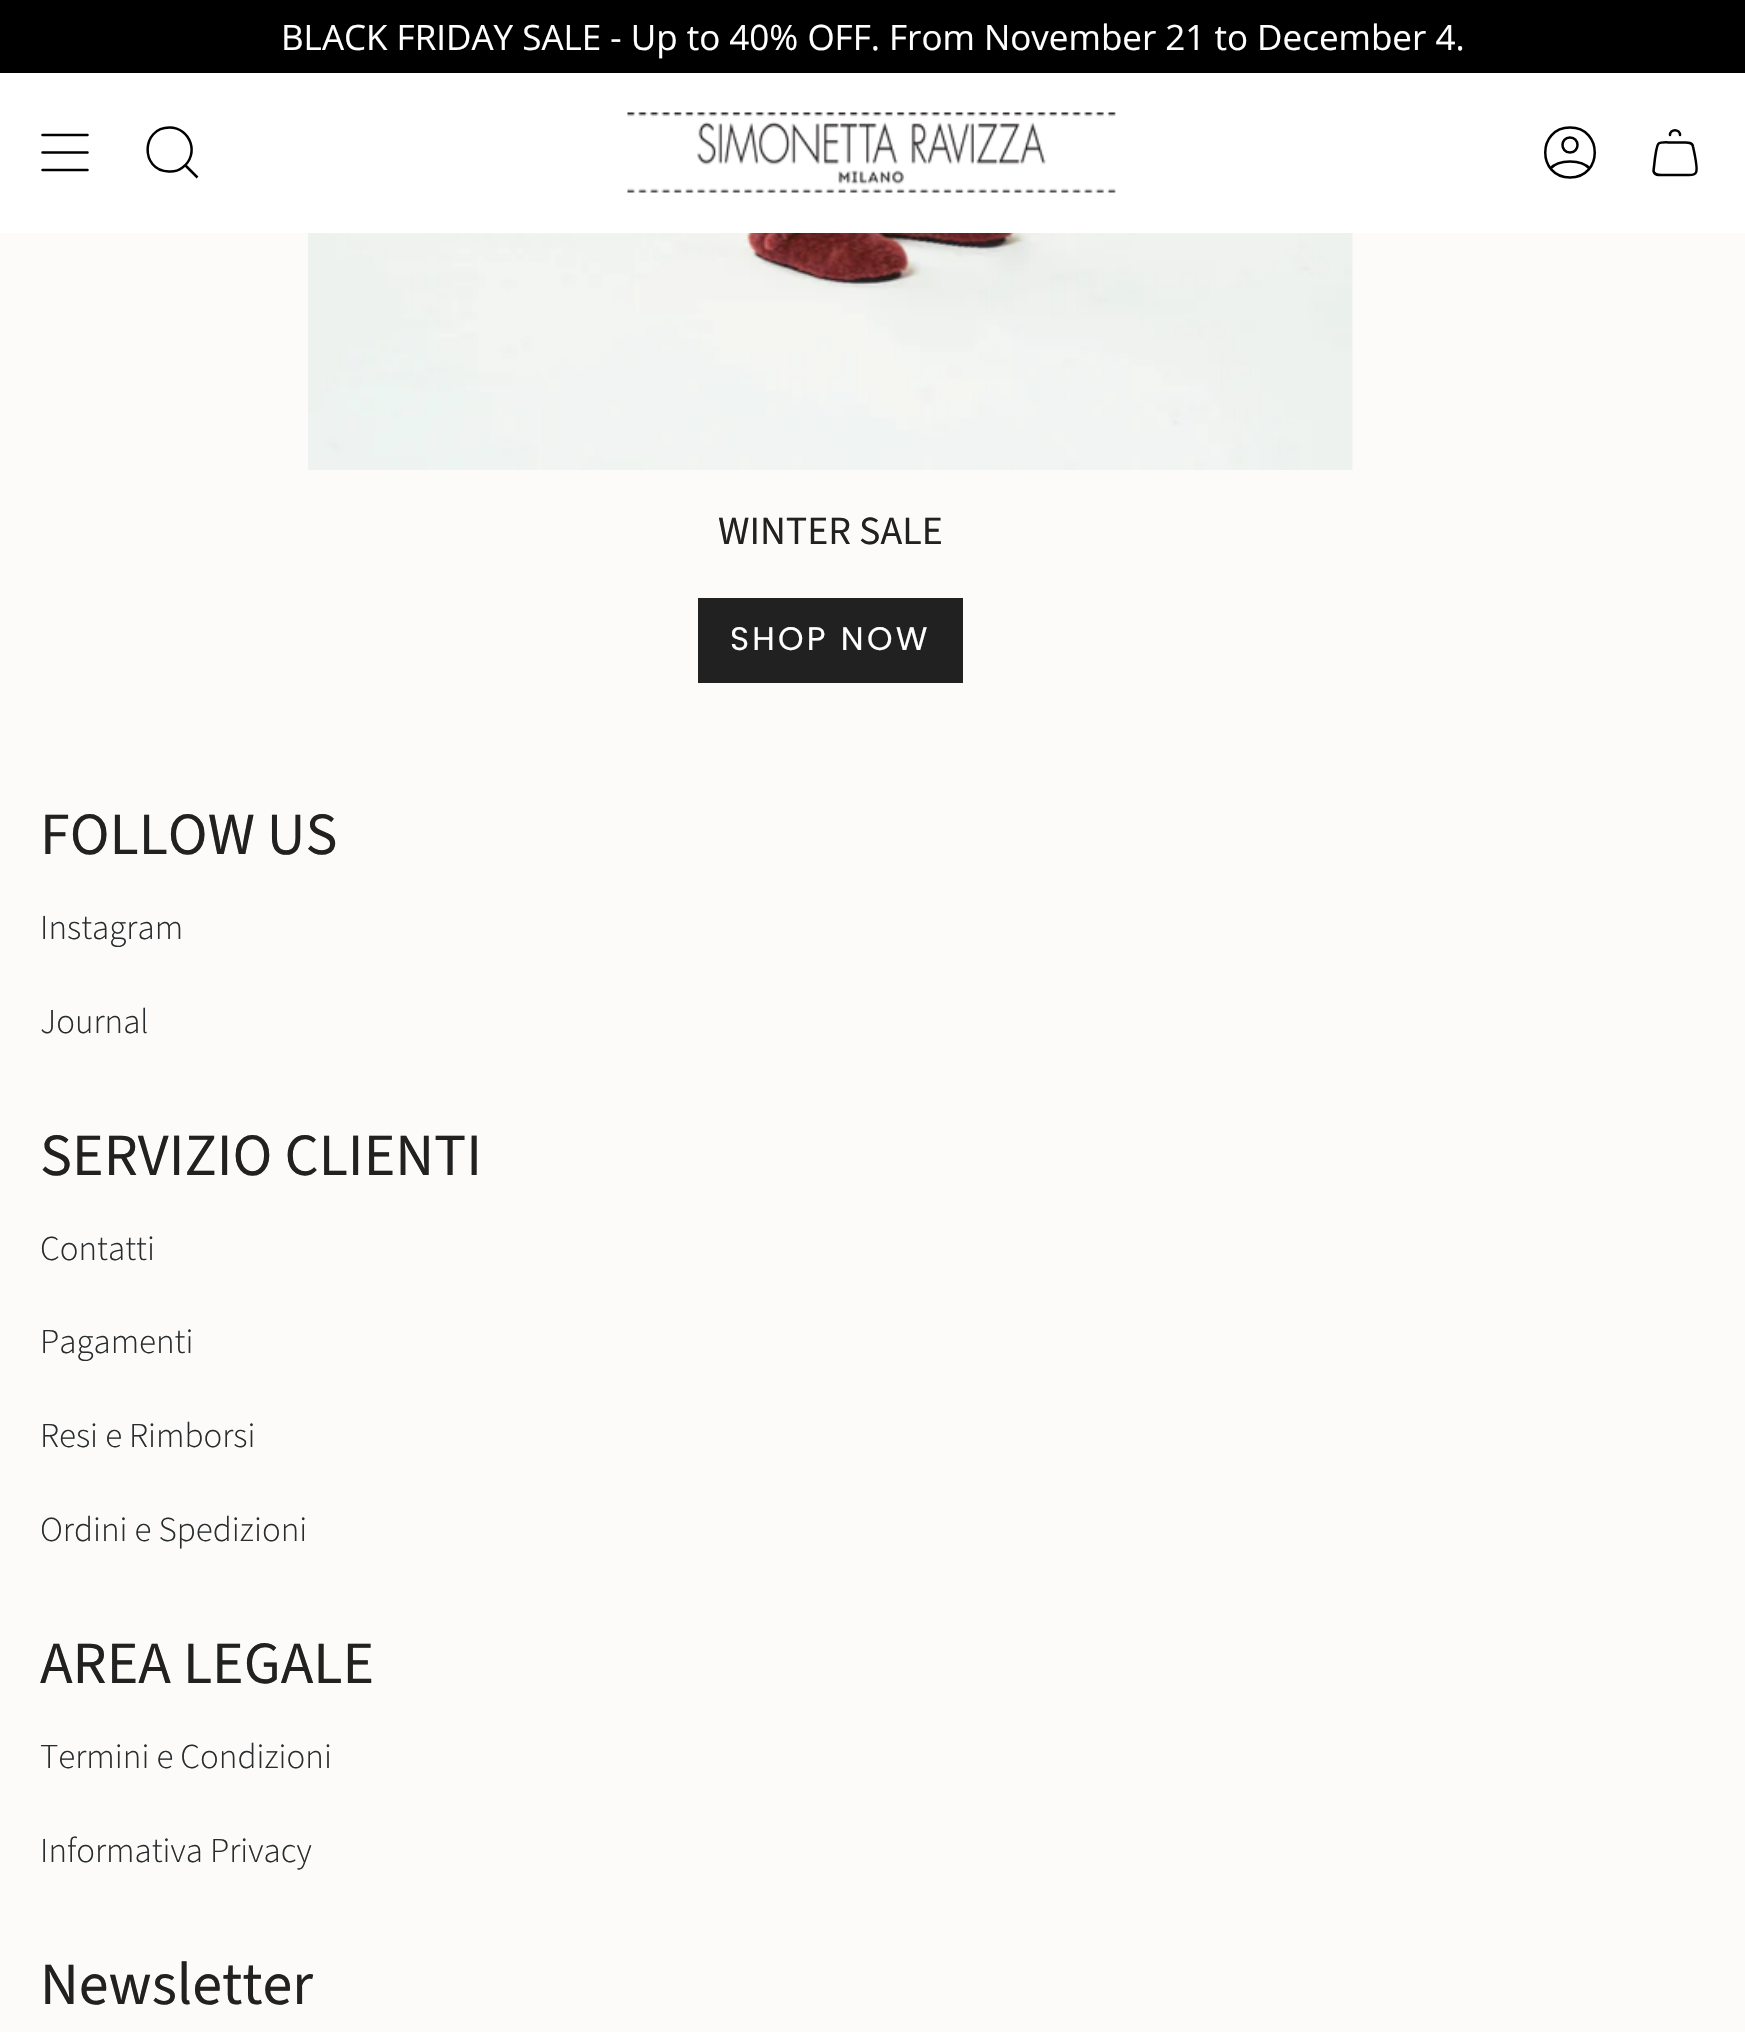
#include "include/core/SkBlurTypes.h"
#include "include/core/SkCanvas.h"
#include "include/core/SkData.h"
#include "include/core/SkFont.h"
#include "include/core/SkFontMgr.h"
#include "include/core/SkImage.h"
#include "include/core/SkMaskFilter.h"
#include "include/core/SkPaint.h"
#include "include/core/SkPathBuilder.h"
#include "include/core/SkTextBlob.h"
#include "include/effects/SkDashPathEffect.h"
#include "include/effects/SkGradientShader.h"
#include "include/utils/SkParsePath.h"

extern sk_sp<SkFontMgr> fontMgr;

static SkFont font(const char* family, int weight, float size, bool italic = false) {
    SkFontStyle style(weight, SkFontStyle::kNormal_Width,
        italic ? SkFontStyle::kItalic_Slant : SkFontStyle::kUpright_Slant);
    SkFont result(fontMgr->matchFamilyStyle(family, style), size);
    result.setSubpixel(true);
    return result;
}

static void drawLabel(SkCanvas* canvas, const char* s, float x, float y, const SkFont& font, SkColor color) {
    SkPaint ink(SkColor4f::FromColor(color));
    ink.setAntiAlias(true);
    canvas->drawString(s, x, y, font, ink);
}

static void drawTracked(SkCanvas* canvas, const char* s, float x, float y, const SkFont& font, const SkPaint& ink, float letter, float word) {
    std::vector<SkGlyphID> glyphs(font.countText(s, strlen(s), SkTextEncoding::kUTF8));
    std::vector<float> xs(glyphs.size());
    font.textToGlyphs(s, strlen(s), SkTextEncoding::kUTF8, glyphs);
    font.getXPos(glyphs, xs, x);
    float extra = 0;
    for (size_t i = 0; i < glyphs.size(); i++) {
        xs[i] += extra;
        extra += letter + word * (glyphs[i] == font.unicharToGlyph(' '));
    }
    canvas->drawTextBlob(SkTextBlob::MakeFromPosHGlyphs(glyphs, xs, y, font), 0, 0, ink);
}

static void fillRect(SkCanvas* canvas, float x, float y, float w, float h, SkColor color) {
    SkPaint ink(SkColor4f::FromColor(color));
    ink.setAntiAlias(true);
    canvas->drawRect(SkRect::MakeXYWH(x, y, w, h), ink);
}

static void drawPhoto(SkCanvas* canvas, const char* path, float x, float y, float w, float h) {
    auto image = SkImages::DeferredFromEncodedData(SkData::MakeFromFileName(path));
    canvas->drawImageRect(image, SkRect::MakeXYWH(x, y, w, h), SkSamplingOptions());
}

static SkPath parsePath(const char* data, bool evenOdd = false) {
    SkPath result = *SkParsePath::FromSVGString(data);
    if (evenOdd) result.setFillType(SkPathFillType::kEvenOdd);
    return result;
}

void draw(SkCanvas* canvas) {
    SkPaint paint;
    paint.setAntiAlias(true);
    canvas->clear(0xFFFCFBF9);
    fillRect(canvas, 0, 0, 1745, 73, 0xFF000000);
    SkFont font1 = font("Open Sans", 400, 35);
    drawLabel(canvas, "BLACK FRIDAY SALE - Up to 40% OFF. From November 21 to December 4.", 281, 50, font1, 0xFFFFFFFF);
    fillRect(canvas, 0, 73, 1745, 160, 0xFFFFFFFF);
    paint.setStroke(true);
    paint.setStrokeWidth(2.5f);
    paint.setStrokeCap(SkPaint::kRound_Cap);
    paint.setStrokeJoin(SkPaint::kRound_Join);
    paint.setColor(0xFF000000);
    canvas->drawPath(parsePath("M42.5 135H87.5M42.5 152.5H87.5M42.5 170H87.5"), paint);
    paint.setStrokeCap(SkPaint::kButt_Cap);
    paint.setStrokeJoin(SkPaint::kMiter_Join);
    canvas->drawPath(parsePath("M169.5 127.5C190.5 127.5 200 154.5 182.5 167.5C178.5 170.5 173.5 172 168.5 171.5C140 170.5 141 127.5 169.5 127.5ZM185.5 165.5L197.5 177.5"), paint);
    drawPhoto(canvas, "assets/img1.png", 627, 112, 489, 81);
    paint.setStrokeCap(SkPaint::kRound_Cap);
    paint.setStrokeJoin(SkPaint::kRound_Join);
    canvas->drawPath(parsePath("M1570 127.5C1537 127.5 1537 177.5 1570 177.5C1603 177.5 1603 127.5 1570 127.5ZM1550.5 168.5C1558 159 1582 159 1589.5 168.5M1570 152.5C1580 152.5 1580 137.5 1570 137.5C1560 137.5 1560 152.5 1570 152.5Z"), paint);
    canvas->drawPath(parsePath("M1693 146.5C1694 151 1698 169 1696 172.5C1694 176 1689.5 175 1686 175H1664C1660 175 1654.5 176 1653.5 171L1655 158C1658 139.5 1656 142.5 1675 142.5H1684C1687.5 142.5 1692.5 142 1693 146.5ZM1680 135C1680 128.5 1670 128.5 1670 135"), paint);
    drawPhoto(canvas, "assets/img2.png", 308, 233, 1045, 237);
    SkFont font2 = font("Source Sans Pro", 400, 40);
    drawLabel(canvas, "WINTER SALE", 718, 544, font2, 0xFF212121);
    fillRect(canvas, 698, 598, 265, 85, 0xFF212121);
    SkFont font3 = font("Poppins", 400, 32.5f);
    paint.setStroke(false);
    paint.setColor(0xFFFFFFFF);
    drawTracked(canvas, "SHOP NOW", 730, 650, font3, paint, 3.25f, 0);
    SkFont font4 = font("Source Sans Pro", 400, 60);
    drawLabel(canvas, "FOLLOW US", 40, 854, font4, 0xFF212121);
    SkFont font5 = font("Source Sans Pro", 300, 35);
    drawLabel(canvas, "Instagram", 40, 939, font5, 0xFF282C2E);
    drawLabel(canvas, "Journal", 40, 1033, font5, 0xFF282C2E);
    drawLabel(canvas, "SERVIZIO CLIENTI", 40, 1175, font4, 0xFF212121);
    drawLabel(canvas, "Contatti", 40, 1260, font5, 0xFF282C2E);
    drawLabel(canvas, "Pagamenti", 40, 1353, font5, 0xFF282C2E);
    drawLabel(canvas, "Resi e Rimborsi", 40, 1447, font5, 0xFF282C2E);
    drawLabel(canvas, "Ordini e Spedizioni", 40, 1541, font5, 0xFF282C2E);
    drawLabel(canvas, "AREA LEGALE", 40, 1683, font4, 0xFF212121);
    drawLabel(canvas, "Termini e Condizioni", 40, 1768, font5, 0xFF282C2E);
    drawLabel(canvas, "Informativa Privacy", 40, 1862, font5, 0xFF282C2E);
    drawLabel(canvas, "Newsletter", 40, 2004, font4, 0xFF212121);
}
